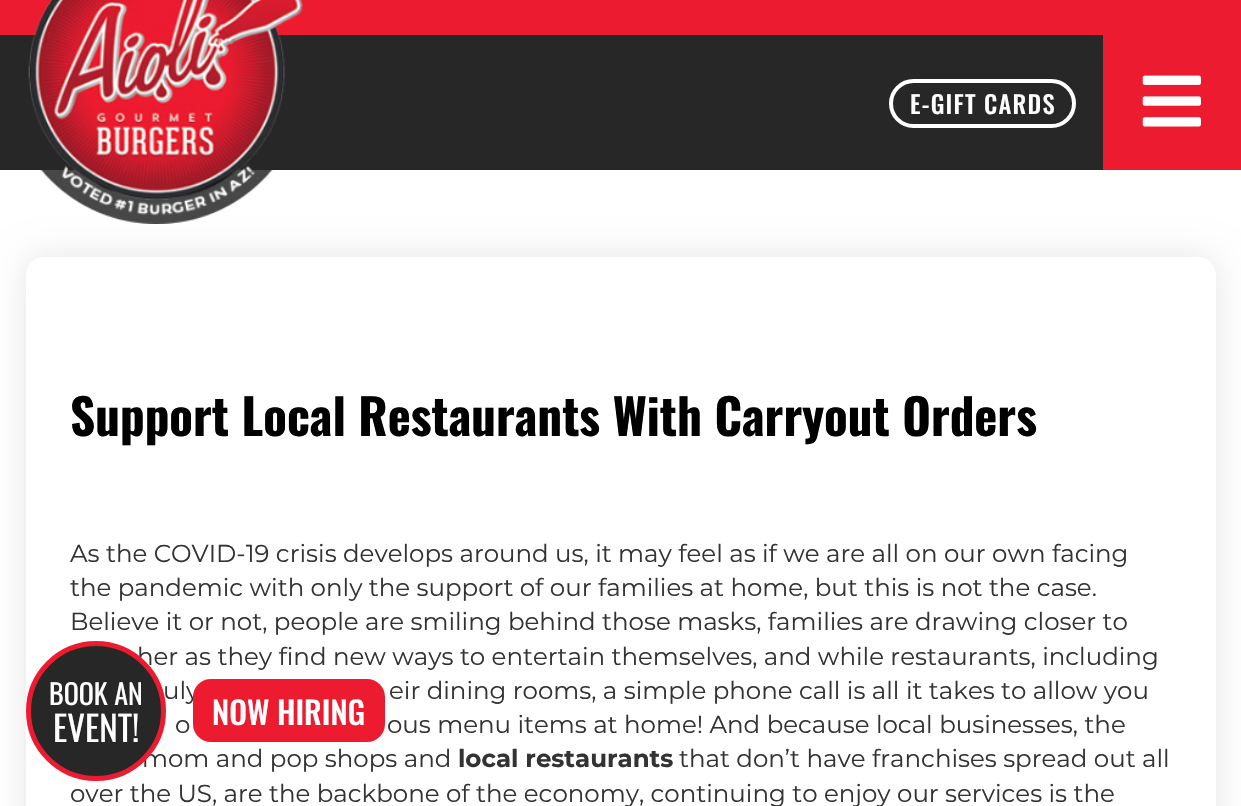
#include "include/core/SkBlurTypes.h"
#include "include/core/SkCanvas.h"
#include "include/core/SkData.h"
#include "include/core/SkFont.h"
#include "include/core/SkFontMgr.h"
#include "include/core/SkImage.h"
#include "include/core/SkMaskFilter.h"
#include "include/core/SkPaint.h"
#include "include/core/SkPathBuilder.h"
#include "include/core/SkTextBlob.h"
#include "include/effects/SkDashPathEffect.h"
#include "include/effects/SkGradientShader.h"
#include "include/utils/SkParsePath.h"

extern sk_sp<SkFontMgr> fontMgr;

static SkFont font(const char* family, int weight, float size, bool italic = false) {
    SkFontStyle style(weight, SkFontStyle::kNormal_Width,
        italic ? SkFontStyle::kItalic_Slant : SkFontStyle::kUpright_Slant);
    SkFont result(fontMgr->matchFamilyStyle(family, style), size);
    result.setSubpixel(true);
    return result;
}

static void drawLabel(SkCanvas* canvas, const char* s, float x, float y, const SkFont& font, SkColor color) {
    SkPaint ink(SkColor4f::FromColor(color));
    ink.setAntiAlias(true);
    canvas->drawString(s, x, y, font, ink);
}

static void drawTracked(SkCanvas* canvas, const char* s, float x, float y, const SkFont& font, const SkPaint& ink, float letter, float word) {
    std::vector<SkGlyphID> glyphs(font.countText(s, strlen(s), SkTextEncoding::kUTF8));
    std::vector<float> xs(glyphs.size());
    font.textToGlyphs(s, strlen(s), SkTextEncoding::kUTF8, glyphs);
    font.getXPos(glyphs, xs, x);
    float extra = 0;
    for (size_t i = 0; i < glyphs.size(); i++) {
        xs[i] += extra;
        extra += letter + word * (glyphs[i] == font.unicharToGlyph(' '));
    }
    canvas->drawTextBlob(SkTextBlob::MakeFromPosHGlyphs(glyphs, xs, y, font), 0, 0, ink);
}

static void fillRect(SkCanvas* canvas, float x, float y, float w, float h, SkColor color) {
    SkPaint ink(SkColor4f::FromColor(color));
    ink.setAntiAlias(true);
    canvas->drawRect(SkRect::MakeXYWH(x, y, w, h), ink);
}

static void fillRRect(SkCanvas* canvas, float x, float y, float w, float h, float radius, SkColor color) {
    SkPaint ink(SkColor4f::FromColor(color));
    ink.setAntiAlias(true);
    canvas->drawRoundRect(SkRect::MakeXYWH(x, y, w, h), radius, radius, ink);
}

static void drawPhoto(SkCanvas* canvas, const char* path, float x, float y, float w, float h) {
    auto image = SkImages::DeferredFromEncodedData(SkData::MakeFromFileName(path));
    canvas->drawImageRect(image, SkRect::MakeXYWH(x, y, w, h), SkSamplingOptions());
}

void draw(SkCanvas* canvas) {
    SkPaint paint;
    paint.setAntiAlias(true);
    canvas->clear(0xFFFFFFFF);
    fillRect(canvas, 0, 0, 1241, 35, 0xFFED1B30);
    fillRect(canvas, 0, 35, 1103, 135, 0xFF272727);
    paint.setColor(0x1A000000);
    paint.setMaskFilter(SkMaskFilter::MakeBlur(kNormal_SkBlurStyle, 17.5f));
    canvas->drawRoundRect(SkRect::MakeXYWH(26, 257, 1190, 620), 18, 18, paint);
    paint.setMaskFilter(nullptr);
    drawPhoto(canvas, "assets/img1.png", 28, 0, 275, 224);
    paint.setStroke(true);
    paint.setStrokeWidth(4);
    paint.setColor(0xFFFFFFFF);
    canvas->drawRoundRect(SkRect::MakeXYWH(891, 81, 183, 45), 22.5f, 22.5f, paint);
    SkFont font1 = font("Oswald", 500, 24.5f);
    paint.setStroke(false);
    drawTracked(canvas, "E-GIFT CARDS", 910, 114, font1, paint, 1.25f, 0);
    fillRect(canvas, 1103, 35, 138, 135, 0xFFED1B30);
    drawPhoto(canvas, "assets/img2.png", 1142, 75, 59, 52);
    fillRRect(canvas, 26, 257, 1190, 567, 18, 0xFFFFFFFF);
    SkFont font2 = font("Oswald", 700, 49);
    drawLabel(canvas, "Support Local Restaurants With Carryout Orders", 70, 436, font2, 0xFF000000);
    SkFont font3 = font("Montserrat", 400, 24.5f);
    drawLabel(canvas, "As the COVID-19 crisis develops around us, it may feel as if we are all on our own facing", 70, 562, font3, 0xFF333333);
    drawLabel(canvas, "the pandemic with only the support of our families at home, but this is not the case.", 70, 596, font3, 0xFF333333);
    drawLabel(canvas, "Believe it or not, people are smiling behind those masks, families are drawing closer to", 70, 630, font3, 0xFF333333);
    drawLabel(canvas, "her as they find new ways to entertain themselves, and while restaurants, including", 137, 665, font3, 0xFF333333);
    drawLabel(canvas, "uly", 163, 699, font3, 0xFF333333);
    drawLabel(canvas, "eir dining rooms, a simple phone call is all it takes to allow you", 389, 699, font3, 0xFF333333);
    drawLabel(canvas, "o", 175, 733, font3, 0xFF333333);
    drawLabel(canvas, "ous menu items at home! And because local businesses, the", 387, 733, font3, 0xFF333333);
    drawLabel(canvas, "mom and pop shops and", 142, 767, font3, 0xFF333333);
    SkFont font4 = font("Montserrat", 700, 24.5f);
    drawLabel(canvas, "local restaurants", 458, 767, font4, 0xFF333333);
    drawLabel(canvas, "that don’t have franchises spread out all", 679, 767, font3, 0xFF333333);
    drawLabel(canvas, "over the US, are the backbone of the economy, continuing to enjoy our services is the", 70, 802, font3, 0xFF333333);
    paint.setColor(0xFF272727);
    canvas->drawCircle(96, 711, 67.5f, paint);
    paint.setStroke(true);
    paint.setStrokeWidth(5);
    paint.setColor(0xFFED1B30);
    canvas->drawCircle(96, 711, 67.5f, paint);
    SkFont font5 = font("Oswald", 400, 28);
    drawLabel(canvas, "BOOK AN", 49, 705, font5, 0xFFFFFFFF);
    SkFont font6 = font("Oswald", 400, 35);
    drawLabel(canvas, "EVENT!", 53, 742, font6, 0xFFFFFFFF);
    fillRRect(canvas, 193, 679, 192, 63, 18, 0xFFED1B30);
    SkFont font7 = font("Oswald", 500, 31.5f);
    drawLabel(canvas, "NOW HIRING", 212, 725, font7, 0xFFFFFFFF);
}
